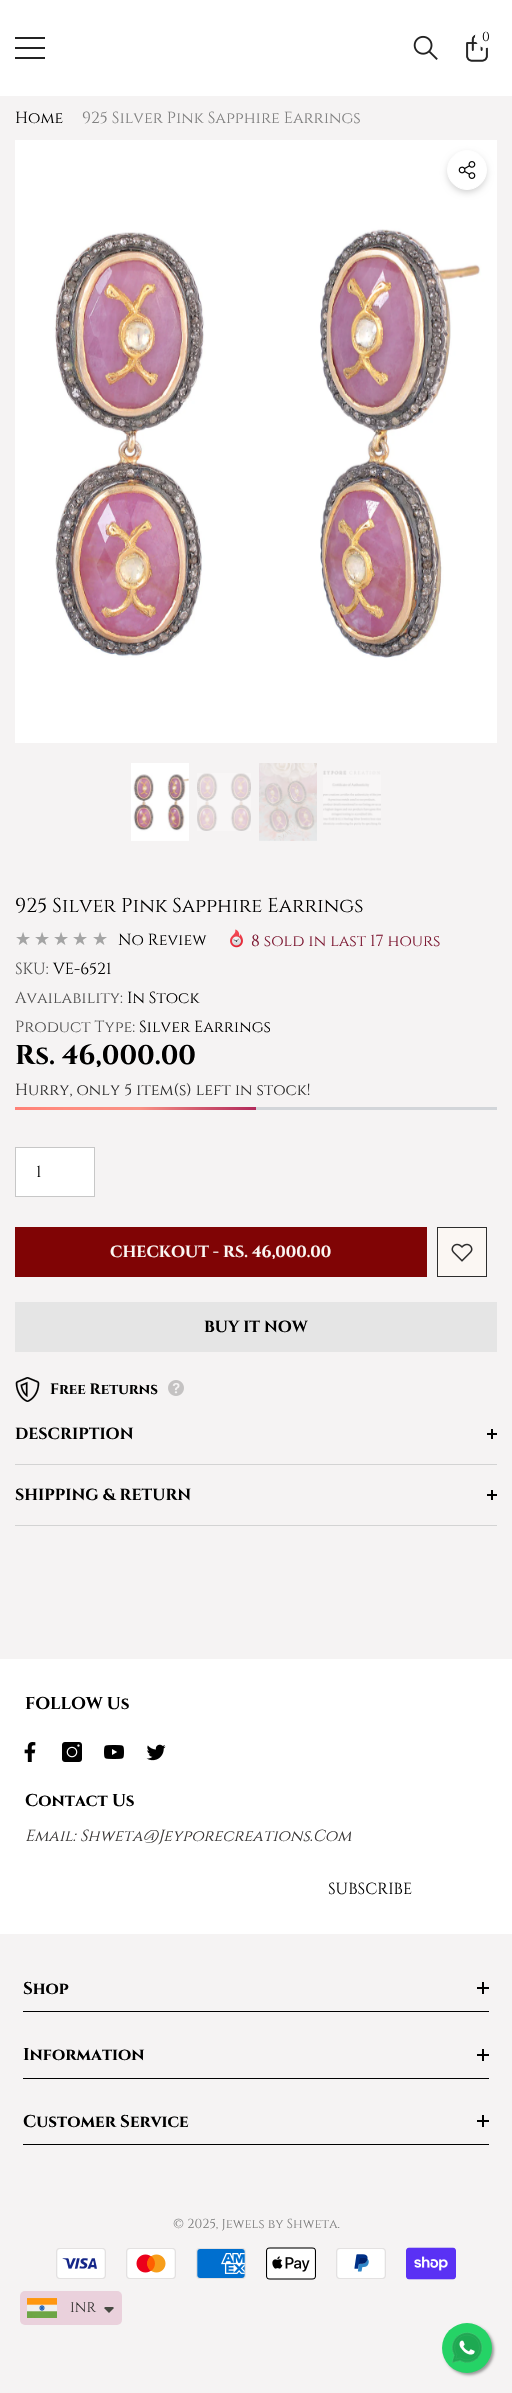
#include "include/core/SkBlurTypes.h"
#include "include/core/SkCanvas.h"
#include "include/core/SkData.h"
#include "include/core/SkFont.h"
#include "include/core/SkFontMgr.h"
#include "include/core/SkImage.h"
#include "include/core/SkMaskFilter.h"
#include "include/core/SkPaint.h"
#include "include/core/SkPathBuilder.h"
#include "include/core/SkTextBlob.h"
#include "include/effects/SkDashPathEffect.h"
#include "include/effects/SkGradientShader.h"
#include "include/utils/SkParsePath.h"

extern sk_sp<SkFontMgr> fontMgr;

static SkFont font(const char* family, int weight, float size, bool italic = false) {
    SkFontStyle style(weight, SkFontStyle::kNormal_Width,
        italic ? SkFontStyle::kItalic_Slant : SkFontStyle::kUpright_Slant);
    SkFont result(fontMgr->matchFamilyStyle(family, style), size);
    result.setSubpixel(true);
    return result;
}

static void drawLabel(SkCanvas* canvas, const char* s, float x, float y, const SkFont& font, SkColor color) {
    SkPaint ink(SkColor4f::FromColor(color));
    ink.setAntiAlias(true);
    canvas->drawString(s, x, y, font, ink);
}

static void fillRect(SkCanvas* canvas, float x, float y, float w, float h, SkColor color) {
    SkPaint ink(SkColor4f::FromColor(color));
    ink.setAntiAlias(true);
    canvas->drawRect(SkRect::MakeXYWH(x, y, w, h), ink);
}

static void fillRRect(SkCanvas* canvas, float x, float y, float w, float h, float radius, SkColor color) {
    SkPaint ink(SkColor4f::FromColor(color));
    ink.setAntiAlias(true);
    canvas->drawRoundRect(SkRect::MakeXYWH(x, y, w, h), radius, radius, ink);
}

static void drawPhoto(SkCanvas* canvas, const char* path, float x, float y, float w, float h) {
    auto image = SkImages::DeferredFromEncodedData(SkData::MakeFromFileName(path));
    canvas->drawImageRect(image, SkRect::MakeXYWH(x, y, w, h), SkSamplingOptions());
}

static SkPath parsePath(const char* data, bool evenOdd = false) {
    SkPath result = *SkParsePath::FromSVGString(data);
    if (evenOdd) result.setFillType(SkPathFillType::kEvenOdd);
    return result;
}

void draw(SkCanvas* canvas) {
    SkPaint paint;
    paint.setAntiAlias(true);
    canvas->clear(0xFFF5F3F3);
    fillRect(canvas, 0, 0, 512, 96, 0xFFFFFFFF);
    fillRect(canvas, 15, 47, 30, 2, 0xFF232323);
    fillRect(canvas, 15, 37, 30, 2, 0xFF232323);
    fillRect(canvas, 15, 57, 30, 2, 0xFF232323);
    drawPhoto(canvas, "assets/img1.png", 413, 35, 25, 25);
    drawPhoto(canvas, "assets/img2.png", 466, 34, 22, 28);
    paint.setColor(0xFFFFFFFF);
    canvas->drawCircle(486, 37, 11, paint);
    SkFont font1 = font("Cinzel", 400, 13);
    drawLabel(canvas, "0", 482, 41, font1, 0xFF000000);
    SkFont font2 = font("Cinzel", 400, 16);
    drawLabel(canvas, "Home", 15, 123, font2, 0xFF000000);
    drawLabel(canvas, "925 Silver Pink Sapphire Earrings", 82, 123, font2, 0xFF808080);
    drawPhoto(canvas, "assets/img3.png", 15, 140, 482, 603);
    paint.setColor(0x33000000);
    paint.setMaskFilter(SkMaskFilter::MakeBlur(kNormal_SkBlurStyle, 3.5f));
    canvas->drawRoundRect(SkRect::MakeXYWH(448, 154, 38, 38), 19, 19, paint);
    paint.setMaskFilter(nullptr);
    paint.setColor(0xFFFFFFFF);
    canvas->drawCircle(467, 170, 19.5f, paint);
    paint.setStroke(true);
    paint.setStrokeWidth(1);
    canvas->drawCircle(467, 170, 19.5f, paint);
    drawPhoto(canvas, "assets/img4.png", 458, 161, 18, 18);
    drawPhoto(canvas, "assets/img5.png", 131, 763, 58, 78);
    drawPhoto(canvas, "assets/img6.png", 197, 773, 54, 58);
    drawPhoto(canvas, "assets/img7.png", 259, 763, 58, 78);
    drawPhoto(canvas, "assets/img8.png", 323, 770, 58, 56);
    SkFont font3 = font("Cinzel", 400, 20);
    drawLabel(canvas, "925 Silver Pink Sapphire Earrings", 15, 912, font3, 0xFF000000);
    SkFont font4 = font("DejaVu Sans", 400, 18);
    drawLabel(canvas, "★", 15, 945, font4, 0xFFA4A4A4);
    drawLabel(canvas, "★", 34, 945, font4, 0xFFA4A4A4);
    drawLabel(canvas, "★", 53, 945, font4, 0xFFA4A4A4);
    drawLabel(canvas, "★", 72, 945, font4, 0xFFA4A4A4);
    drawLabel(canvas, "★", 92, 945, font4, 0xFFA4A4A4);
    drawLabel(canvas, "No Review", 118, 945, font2, 0xFF000000);
    drawPhoto(canvas, "assets/img9.png", 230, 929, 13, 19);
    drawLabel(canvas, "8 sold in last 17 hours", 251, 946, font2, 0xFF7D1933);
    drawLabel(canvas, "SKU:", 15, 974, font2, 0xFF505050);
    drawLabel(canvas, "VE-6521", 53, 974, font2, 0xFF000000);
    drawLabel(canvas, "Availability:", 15, 1003, font2, 0xFF505050);
    drawLabel(canvas, "In Stock", 127, 1003, font2, 0xFF000000);
    drawLabel(canvas, "Product Type:", 15, 1032, font2, 0xFF505050);
    drawLabel(canvas, "Silver Earrings", 139, 1032, font2, 0xFF000000);
    SkFont font5 = font("Cinzel", 700, 27);
    drawLabel(canvas, "Rs. 46,000.00", 15, 1064, font5, 0xFF000000);
    drawLabel(canvas, "Hurry, only 5 item(s) left in stock!", 15, 1095, font2, 0xFF2D2D2D);
    fillRect(canvas, 256, 1107, 241, 3, 0xFFD2D5D9);
    paint.setStroke(false);
    {
        const SkColor colors[] = {0xFFFF8177, 0xFFFF867A, 0xFFFF8C7F, 0xFFF99185, 0xFFCF556C, 0xFFB12A5B};
        const float stops[] = {0, 0.1f, 0.21f, 0.52f, 0.78f, 1};
        const SkPoint ends[] = {{15, 1109}, {256, 1109}};
        paint.setShader(SkGradientShader::MakeLinear(ends, colors, stops, 6, SkTileMode::kClamp));
        paint.setAlpha(255);
    }
    canvas->drawRect(SkRect::MakeXYWH(15, 1107, 241, 3), paint);
    paint.setShader(nullptr);
    paint.setColor(0xFFFFFFFF);
    canvas->drawRect(SkRect::MakeXYWH(15.5f, 1147.5f, 79, 49), paint);
    paint.setStroke(true);
    paint.setColor(0xFFC7C7C7);
    canvas->drawRect(SkRect::MakeXYWH(15.5f, 1147.5f, 79, 49), paint);
    drawLabel(canvas, "1", 36, 1177, font2, 0xFF000000);
    fillRect(canvas, 15, 1227, 412, 50, 0xFF800405);
    SkFont font6 = font("Cinzel", 700, 16);
    drawLabel(canvas, "CHECKOUT - RS. 46,000.00", 110, 1257, font6, 0xFFFBF7F3);
    paint.setStroke(false);
    paint.setColor(0xFFFBF7F3);
    canvas->drawRect(SkRect::MakeXYWH(437.5f, 1227.5f, 49, 49), paint);
    paint.setStroke(true);
    paint.setColor(0xFF2D2D2D);
    canvas->drawRect(SkRect::MakeXYWH(437.5f, 1227.5f, 49, 49), paint);
    drawPhoto(canvas, "assets/img10.png", 451, 1243, 22, 19);
    fillRect(canvas, 15, 1302, 482, 50, 0xFFE5E5E5);
    drawLabel(canvas, "BUY IT NOW", 204, 1332, font6, 0xFF000000);
    drawPhoto(canvas, "assets/img11.png", 15, 1377, 25, 25);
    SkFont font7 = font("Cinzel", 700, 15);
    drawLabel(canvas, "Free Returns", 50, 1394, font7, 0xFF000000);
    drawPhoto(canvas, "assets/img12.png", 168, 1380, 16, 16);
    drawLabel(canvas, "DESCRIPTION", 15, 1439, font6, 0xFF000000);
    fillRect(canvas, 491, 1429, 2, 10, 0xFF000000);
    fillRect(canvas, 487, 1433, 10, 2, 0xFF000000);
    fillRect(canvas, 15, 1464, 482, 1, 0xFFD3D3D3);
    fillRect(canvas, 15, 1525, 482, 1, 0xFFD3D3D3);
    drawLabel(canvas, "SHIPPING & RETURN", 15, 1500, font6, 0xFF000000);
    fillRect(canvas, 491, 1490, 2, 10, 0xFF000000);
    fillRect(canvas, 487, 1494, 10, 2, 0xFF000000);
    fillRect(canvas, 0, 1659, 512, 275, 0xFFFFFFFF);
    SkFont font8 = font("Cinzel", 700, 17);
    drawLabel(canvas, "FOLLOW Us", 25, 1709, font8, 0xFF000000);
    drawPhoto(canvas, "assets/img13.png", 24, 1742, 12, 20);
    drawPhoto(canvas, "assets/img14.png", 62, 1742, 20, 20);
    drawPhoto(canvas, "assets/img15.png", 104, 1745, 20, 14);
    drawPhoto(canvas, "assets/img16.png", 146, 1744, 20, 17);
    drawLabel(canvas, "Contact Us", 25, 1806, font8, 0xFF000000);
    SkFont font9 = font("Cinzel", 400, 16, true);
    drawLabel(canvas, "Email:", 25, 1841, font9, 0xFF363433);
    drawLabel(canvas, "Shweta@Jeyporecreations.Com", 80, 1841, font9, 0xFF363433);
    drawLabel(canvas, "SUBSCRIBE", 328, 1894, font2, 0xFF000000);
    fillRect(canvas, 23, 2011, 466, 1, 0xFF000000);
    drawLabel(canvas, "Shop", 23, 1994, font8, 0xFF000000);
    fillRect(canvas, 482, 1982, 2, 12, 0xFF000000);
    fillRect(canvas, 477, 1987, 12, 2, 0xFF000000);
    fillRect(canvas, 23, 2078, 466, 1, 0xFF000000);
    drawLabel(canvas, "Information", 23, 2060, font8, 0xFF000000);
    fillRect(canvas, 482, 2049, 2, 12, 0xFF000000);
    fillRect(canvas, 477, 2054, 12, 2, 0xFF000000);
    fillRect(canvas, 23, 2144, 466, 1, 0xFF000000);
    drawLabel(canvas, "Customer Service", 23, 2127, font8, 0xFF000000);
    fillRect(canvas, 482, 2115, 2, 12, 0xFF000000);
    fillRect(canvas, 477, 2120, 12, 2, 0xFF000000);
    drawLabel(canvas, "© 2025, Jewels by Shweta.", 173, 2228, font1, 0xFF808080);
    drawPhoto(canvas, "assets/img17.png", 56, 2248, 50, 31);
    drawPhoto(canvas, "assets/img18.png", 126, 2248, 50, 31);
    drawPhoto(canvas, "assets/img19.png", 196, 2248, 50, 31);
    drawPhoto(canvas, "assets/img20.png", 266, 2247, 50, 33);
    drawPhoto(canvas, "assets/img21.png", 336, 2248, 50, 31);
    drawPhoto(canvas, "assets/img22.png", 406, 2247, 50, 33);
    fillRRect(canvas, 20, 2291, 102, 34, 5, 0xFFEAD1DC);
    drawPhoto(canvas, "assets/img23.png", 27, 2298, 30, 20);
    SkFont font10 = font("Cinzel", 400, 14);
    drawLabel(canvas, "INR", 70, 2312, font10, 0xFF363433);
    paint.setStroke(false);
    paint.setColor(0xFF474942);
    canvas->drawPath(parsePath("M106 2307C105 2307 104.5 2307.5 104 2308L109 2313L114 2308L113 2307Z"), paint);
    paint.setColor(0xFF999999);
    paint.setMaskFilter(SkMaskFilter::MakeBlur(kNormal_SkBlurStyle, 1.5f));
    canvas->drawRoundRect(SkRect::MakeXYWH(444, 2325, 50, 50), 25, 25, paint);
    paint.setMaskFilter(nullptr);
    paint.setColor(0xFF25D366);
    canvas->drawCircle(467, 2348, 25, paint);
    drawPhoto(canvas, "assets/img24.png", 451, 2332, 32, 31);
}
